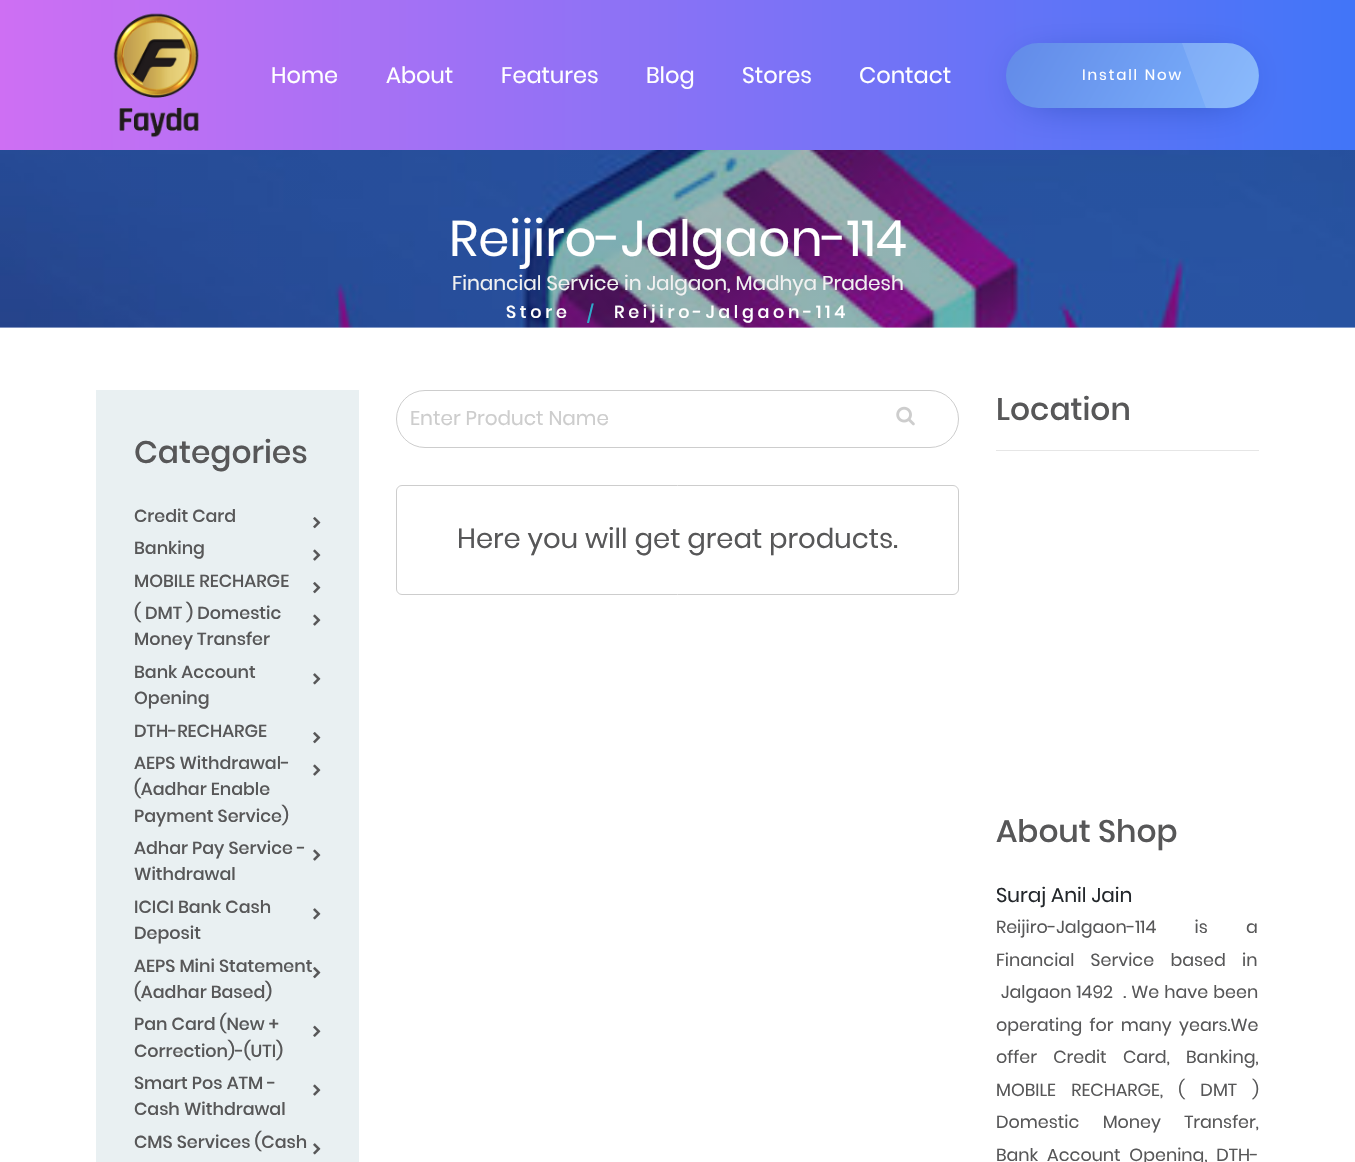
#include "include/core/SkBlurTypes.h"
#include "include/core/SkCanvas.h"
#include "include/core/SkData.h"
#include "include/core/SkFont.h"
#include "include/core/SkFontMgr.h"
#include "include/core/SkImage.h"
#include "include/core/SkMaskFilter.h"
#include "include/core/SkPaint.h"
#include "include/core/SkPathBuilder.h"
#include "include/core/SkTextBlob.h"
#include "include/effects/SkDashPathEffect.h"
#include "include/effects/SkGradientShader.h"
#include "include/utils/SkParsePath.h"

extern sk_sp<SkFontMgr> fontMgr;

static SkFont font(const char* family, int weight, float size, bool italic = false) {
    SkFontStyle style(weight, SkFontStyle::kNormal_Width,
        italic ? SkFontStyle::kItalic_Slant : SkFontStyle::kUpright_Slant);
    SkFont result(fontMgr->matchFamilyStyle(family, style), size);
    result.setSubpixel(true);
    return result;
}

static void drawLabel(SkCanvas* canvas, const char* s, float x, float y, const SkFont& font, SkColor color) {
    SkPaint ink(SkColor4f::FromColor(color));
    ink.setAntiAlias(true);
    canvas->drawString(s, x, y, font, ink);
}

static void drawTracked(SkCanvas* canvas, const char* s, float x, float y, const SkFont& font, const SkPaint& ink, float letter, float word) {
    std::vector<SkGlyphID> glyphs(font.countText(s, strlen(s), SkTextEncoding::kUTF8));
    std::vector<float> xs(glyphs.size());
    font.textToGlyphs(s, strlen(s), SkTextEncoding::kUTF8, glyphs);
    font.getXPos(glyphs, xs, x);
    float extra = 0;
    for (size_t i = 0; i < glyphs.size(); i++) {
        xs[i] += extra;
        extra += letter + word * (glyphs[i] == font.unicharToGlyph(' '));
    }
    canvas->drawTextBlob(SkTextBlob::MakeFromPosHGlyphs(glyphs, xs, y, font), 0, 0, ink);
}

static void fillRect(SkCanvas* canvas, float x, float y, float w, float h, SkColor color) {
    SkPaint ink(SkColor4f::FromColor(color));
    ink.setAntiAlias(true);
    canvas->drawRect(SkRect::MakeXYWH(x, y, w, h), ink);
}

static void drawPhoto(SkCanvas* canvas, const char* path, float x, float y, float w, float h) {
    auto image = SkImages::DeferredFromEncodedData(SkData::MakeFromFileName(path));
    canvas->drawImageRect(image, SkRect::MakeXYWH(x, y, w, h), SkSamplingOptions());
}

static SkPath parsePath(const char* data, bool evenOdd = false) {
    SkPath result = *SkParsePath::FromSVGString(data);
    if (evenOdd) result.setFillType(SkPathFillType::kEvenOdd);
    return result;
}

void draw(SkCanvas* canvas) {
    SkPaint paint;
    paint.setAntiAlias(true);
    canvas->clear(0xFFFFFFFF);
    {
        const SkColor colors[] = {0xFFCE6FF3, 0xFF4175F8};
        const float stops[] = {0, 1};
        const SkPoint ends[] = {{0, 75}, {1355, 75}};
        paint.setShader(SkGradientShader::MakeLinear(ends, colors, stops, 2, SkTileMode::kClamp));
        paint.setAlpha(255);
    }
    canvas->drawRect(SkRect::MakeXYWH(0, 0, 1355, 150), paint);
    drawPhoto(canvas, "assets/img1.png", 113, 13, 86, 125);
    SkFont font1 = font("Poppins", 400, 22.5f);
    drawLabel(canvas, "Home", 271, 83, font1, 0xFFFFFFFF);
    drawLabel(canvas, "About", 386, 83, font1, 0xFFFFFFFF);
    drawLabel(canvas, "Features", 501, 83, font1, 0xFFFFFFFF);
    drawLabel(canvas, "Blog", 646, 83, font1, 0xFFFFFFFF);
    drawLabel(canvas, "Stores", 742, 83, font1, 0xFFFFFFFF);
    drawLabel(canvas, "Contact", 859, 83, font1, 0xFFFFFFFF);
    fillRect(canvas, 0, 327, 1355, 1, 0xFFF7F7F7);
    drawPhoto(canvas, "assets/img2.png", 0, 150, 1355, 178);
    paint.setShader(nullptr);
    paint.setColor(0xFF133B9D);
    paint.setMaskFilter(SkMaskFilter::MakeBlur(kNormal_SkBlurStyle, 22));
    canvas->drawRoundRect(SkRect::MakeXYWH(1026, 69, 213, 25), 12.5f, 12.5f, paint);
    paint.setMaskFilter(nullptr);
    {
        const SkColor colors[] = {0xFF628AE8, 0xFF7CB3FD};
        const float stops[] = {0, 1};
        const SkPoint ends[] = {{1024, 12}, {1241, 138}};
        paint.setShader(SkGradientShader::MakeLinear(ends, colors, stops, 2, SkTileMode::kClamp));
        paint.setAlpha(255);
    }
    canvas->drawRoundRect(SkRect::MakeXYWH(1006, 43, 253, 65), 32.5f, 32.5f, paint);
    SkFont font2 = font("Poppins", 400, 15);
    paint.setShader(nullptr);
    paint.setColor(0xFFFFFFFF);
    drawTracked(canvas, "Install Now", 1082, 80, font2, paint, 1.9f, 0);
    paint.setColor(0x1AFFFFFF);
    canvas->drawPath(parsePath("M1182 43L1206 108C1217 108 1229 110 1239 105C1271 92 1262 43 1226 43Z"), paint);
    SkFont font3 = font("Poppins", 400, 50);
    drawLabel(canvas, "Reijiro-Jalgaon-114", 449, 256, font3, 0xFFFFFFFF);
    SkFont font4 = font("Poppins", 400, 20);
    drawLabel(canvas, "Financial Service in Jalgaon, Madhya Pradesh", 452, 290, font4, 0xFFF1F1F1);
    SkFont font5 = font("Poppins", 500, 17.5f);
    paint.setColor(0xFFFFFFFF);
    drawTracked(canvas, "Store", 506, 318, font5, paint, 3.75f, 0);
    paint.setColor(0xFF2FAACB);
    drawTracked(canvas, "/", 587, 320, font5, paint, 3.75f, 0);
    paint.setColor(0xFFFFFFFF);
    drawTracked(canvas, "Reijiro-Jalgaon-114", 614, 318, font5, paint, 3.75f, 0);
    fillRect(canvas, 96, 390, 263, 772, 0xFFE9F0F2);
    SkFont font6 = font("Poppins", 500, 31.25f);
    drawLabel(canvas, "Categories", 134, 463, font6, 0xFF575758);
    drawLabel(canvas, "Credit Card", 134, 522, font5, 0xFF575758);
    drawPhoto(canvas, "assets/img3.png", 313, 517, 8, 12);
    drawLabel(canvas, "Banking", 134, 554, font5, 0xFF575758);
    drawPhoto(canvas, "assets/img4.png", 313, 549, 8, 12);
    drawLabel(canvas, "MOBILE RECHARGE", 134, 587, font5, 0xFF575758);
    drawPhoto(canvas, "assets/img3.png", 313, 582, 8, 12);
    drawLabel(canvas, "( DMT ) Domestic", 134, 619, font5, 0xFF575758);
    drawPhoto(canvas, "assets/img4.png", 313, 614, 8, 12);
    drawLabel(canvas, "Money Transfer", 134, 645, font5, 0xFF575758);
    drawLabel(canvas, "Bank Account", 134, 678, font5, 0xFF575758);
    drawPhoto(canvas, "assets/img5.png", 313, 673, 8, 12);
    drawLabel(canvas, "Opening", 134, 704, font5, 0xFF575758);
    drawLabel(canvas, "DTH-RECHARGE", 134, 737, font5, 0xFF575758);
    drawPhoto(canvas, "assets/img3.png", 313, 732, 8, 12);
    drawLabel(canvas, "AEPS Withdrawal-", 134, 769, font5, 0xFF575758);
    drawPhoto(canvas, "assets/img4.png", 313, 764, 8, 12);
    drawLabel(canvas, "(Aadhar Enable", 134, 795, font5, 0xFF575758);
    drawLabel(canvas, "Payment Service)", 134, 822, font5, 0xFF575758);
    drawLabel(canvas, "Adhar Pay Service -", 134, 854, font5, 0xFF575758);
    drawPhoto(canvas, "assets/img4.png", 313, 849, 8, 12);
    drawLabel(canvas, "Withdrawal", 134, 880, font5, 0xFF575758);
    drawLabel(canvas, "ICICI Bank Cash", 134, 913, font5, 0xFF575758);
    drawPhoto(canvas, "assets/img5.png", 313, 908, 8, 12);
    drawLabel(canvas, "Deposit", 134, 939, font5, 0xFF575758);
    drawLabel(canvas, "AEPS Mini Statement", 134, 972, font5, 0xFF575758);
    drawPhoto(canvas, "assets/img3.png", 313, 967, 8, 12);
    drawLabel(canvas, "(Aadhar Based)", 134, 998, font5, 0xFF575758);
    drawLabel(canvas, "Pan Card (New +", 134, 1030, font5, 0xFF575758);
    drawPhoto(canvas, "assets/img6.png", 313, 1025, 8, 12);
    drawLabel(canvas, "Correction)-(UTI)", 134, 1057, font5, 0xFF575758);
    drawLabel(canvas, "Smart Pos ATM -", 134, 1089, font5, 0xFF575758);
    drawPhoto(canvas, "assets/img4.png", 313, 1084, 8, 12);
    drawLabel(canvas, "Cash Withdrawal", 134, 1115, font5, 0xFF575758);
    drawLabel(canvas, "CMS Services (Cash", 134, 1148, font5, 0xFF575758);
    drawPhoto(canvas, "assets/img5.png", 313, 1143, 8, 12);
    paint.setStroke(true);
    paint.setStrokeWidth(1);
    paint.setColor(0xFFCDCDCD);
    canvas->drawRoundRect(SkRect::MakeXYWH(396.5f, 390.5f, 562, 57), 28.5f, 28.5f, paint);
    drawLabel(canvas, "Enter Product Name", 410, 425, font4, 0xFFCDCDCD);
    drawPhoto(canvas, "assets/img7.png", 896, 406, 19, 20);
    canvas->drawRoundRect(SkRect::MakeXYWH(396.5f, 485.5f, 562, 109), 5.5f, 5.5f, paint);
    SkFont font7 = font("Poppins", 400, 27.5f);
    drawLabel(canvas, "Here you will get great products.", 457, 548, font7, 0xFF575758);
    drawLabel(canvas, "Location", 996, 420, font6, 0xFF575758);
    fillRect(canvas, 996, 450, 263, 1, 0xFFE6E6E6);
    drawLabel(canvas, "About Shop", 996, 842, font6, 0xFF575758);
    drawLabel(canvas, "Suraj Anil Jain", 996, 902, font4, 0xFF23272B);
    SkFont font8 = font("Poppins", 400, 17.5f);
    paint.setStroke(false);
    paint.setColor(0xFF575758);
    drawTracked(canvas, "Reijiro-Jalgaon-114 is a", 996, 933, font8, paint, 0, 34);
    drawTracked(canvas, "Financial Service based in", 996, 966, font8, paint, 0, 12);
    drawTracked(canvas, "Jalgaon 1492  . We have been", 1001, 998, font8, paint, 0, 0.75f);
    drawTracked(canvas, "operating for many years.We", 996, 1031, font8, paint, 0, 3);
    drawTracked(canvas, "offer Credit Card, Banking,", 996, 1063, font8, paint, 0, 12);
    drawTracked(canvas, "MOBILE RECHARGE, ( DMT )", 996, 1096, font8, paint, 0, 11);
    drawTracked(canvas, "Domestic Money Transfer,", 996, 1128, font8, paint, 0, 19);
    drawTracked(canvas, "Bank Account Opening, DTH-", 996, 1161, font8, paint, 0, 4.5f);
}
